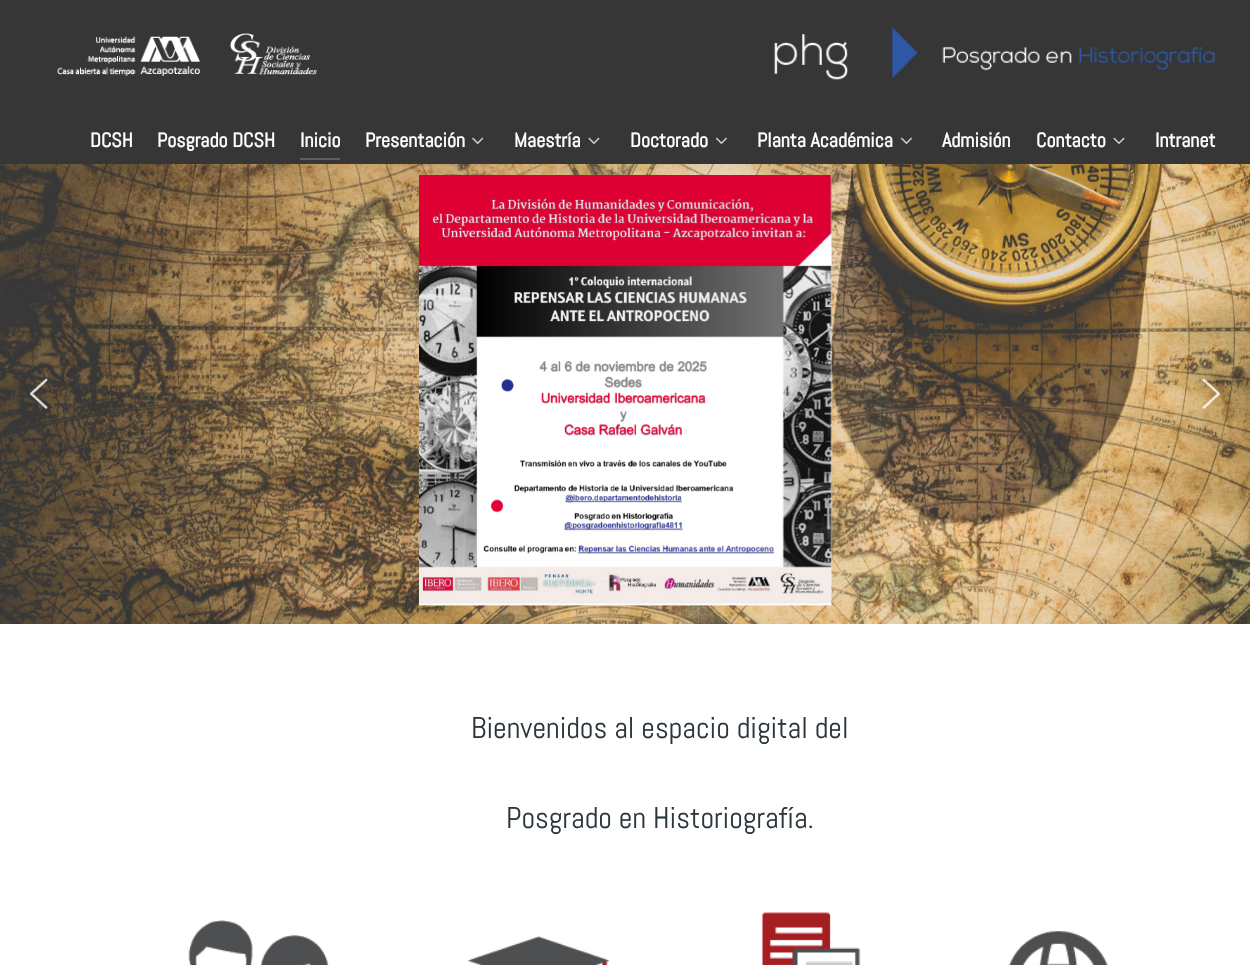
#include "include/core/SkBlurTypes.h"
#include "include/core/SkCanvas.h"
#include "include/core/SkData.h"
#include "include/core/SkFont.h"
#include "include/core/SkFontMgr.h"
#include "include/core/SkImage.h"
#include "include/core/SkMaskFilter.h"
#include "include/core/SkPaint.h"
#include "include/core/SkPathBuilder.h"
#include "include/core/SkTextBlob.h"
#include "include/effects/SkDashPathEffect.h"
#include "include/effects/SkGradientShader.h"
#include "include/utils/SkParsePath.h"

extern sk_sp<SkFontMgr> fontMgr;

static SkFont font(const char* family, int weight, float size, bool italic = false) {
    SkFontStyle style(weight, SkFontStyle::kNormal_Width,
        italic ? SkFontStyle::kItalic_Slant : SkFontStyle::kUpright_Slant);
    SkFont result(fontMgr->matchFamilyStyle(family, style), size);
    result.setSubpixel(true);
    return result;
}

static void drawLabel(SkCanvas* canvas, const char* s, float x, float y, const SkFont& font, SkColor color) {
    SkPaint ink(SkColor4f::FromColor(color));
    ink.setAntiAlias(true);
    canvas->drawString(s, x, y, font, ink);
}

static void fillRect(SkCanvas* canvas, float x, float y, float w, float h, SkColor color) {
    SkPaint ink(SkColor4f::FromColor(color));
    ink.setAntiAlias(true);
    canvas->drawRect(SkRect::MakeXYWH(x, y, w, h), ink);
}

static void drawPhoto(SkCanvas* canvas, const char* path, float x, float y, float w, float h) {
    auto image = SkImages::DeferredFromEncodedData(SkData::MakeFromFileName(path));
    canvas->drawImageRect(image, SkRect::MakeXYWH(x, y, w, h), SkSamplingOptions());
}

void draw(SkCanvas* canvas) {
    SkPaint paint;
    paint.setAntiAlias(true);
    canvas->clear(0xFF363636);
    drawPhoto(canvas, "assets/img1.png", 57, 33, 260, 43);
    drawPhoto(canvas, "assets/img2.png", 774, 27, 442, 53);
    SkFont font1 = font("Abel", 700, 20);
    drawLabel(canvas, "DCSH", 90, 147, font1, 0xFFFFFFFF);
    drawLabel(canvas, "Posgrado DCSH", 157, 147, font1, 0xFFFFFFFF);
    fillRect(canvas, 300, 158, 40, 2, 0xFF5E5E5E);
    drawLabel(canvas, "Inicio", 300, 147, font1, 0xFFFFFFFF);
    drawLabel(canvas, "Presentación", 365, 147, font1, 0xFFFFFFFF);
    drawPhoto(canvas, "assets/img3.png", 472, 137, 12, 8);
    drawLabel(canvas, "Maestría", 514, 147, font1, 0xFFFFFFFF);
    drawPhoto(canvas, "assets/img4.png", 588, 137, 12, 8);
    drawLabel(canvas, "Doctorado", 630, 147, font1, 0xFFFFFFFF);
    drawPhoto(canvas, "assets/img5.png", 715, 137, 12, 8);
    drawLabel(canvas, "Planta Académica", 757, 147, font1, 0xFFFFFFFF);
    drawPhoto(canvas, "assets/img5.png", 900, 137, 12, 8);
    drawLabel(canvas, "Admisión", 942, 147, font1, 0xFFFFFFFF);
    drawLabel(canvas, "Contacto", 1036, 147, font1, 0xFFFFFFFF);
    drawPhoto(canvas, "assets/img4.png", 1113, 137, 12, 8);
    drawLabel(canvas, "Intranet", 1155, 147, font1, 0xFFFFFFFF);
    drawPhoto(canvas, "assets/img6.png", 0, 164, 1250, 460);
    drawPhoto(canvas, "assets/img7.png", 419, 175, 413, 431);
    drawPhoto(canvas, "assets/img8.png", 30, 378, 18, 31);
    drawPhoto(canvas, "assets/img9.png", 1202, 378, 18, 31);
    fillRect(canvas, 0, 624, 1250, 341, 0xFFFFFFFF);
    SkFont font2 = font("Abel", 400, 30);
    drawLabel(canvas, "Bienvenidos al espacio digital del", 471, 738, font2, 0xFF2A363B);
    drawLabel(canvas, "Posgrado en Historiografía.", 506, 828, font2, 0xFF2A363B);
    drawPhoto(canvas, "assets/img10.png", 188, 919, 141, 46);
    drawPhoto(canvas, "assets/img11.png", 467, 936, 142, 29);
    drawPhoto(canvas, "assets/img12.png", 762, 912, 99, 53);
    drawPhoto(canvas, "assets/img13.png", 1008, 931, 100, 34);
}
